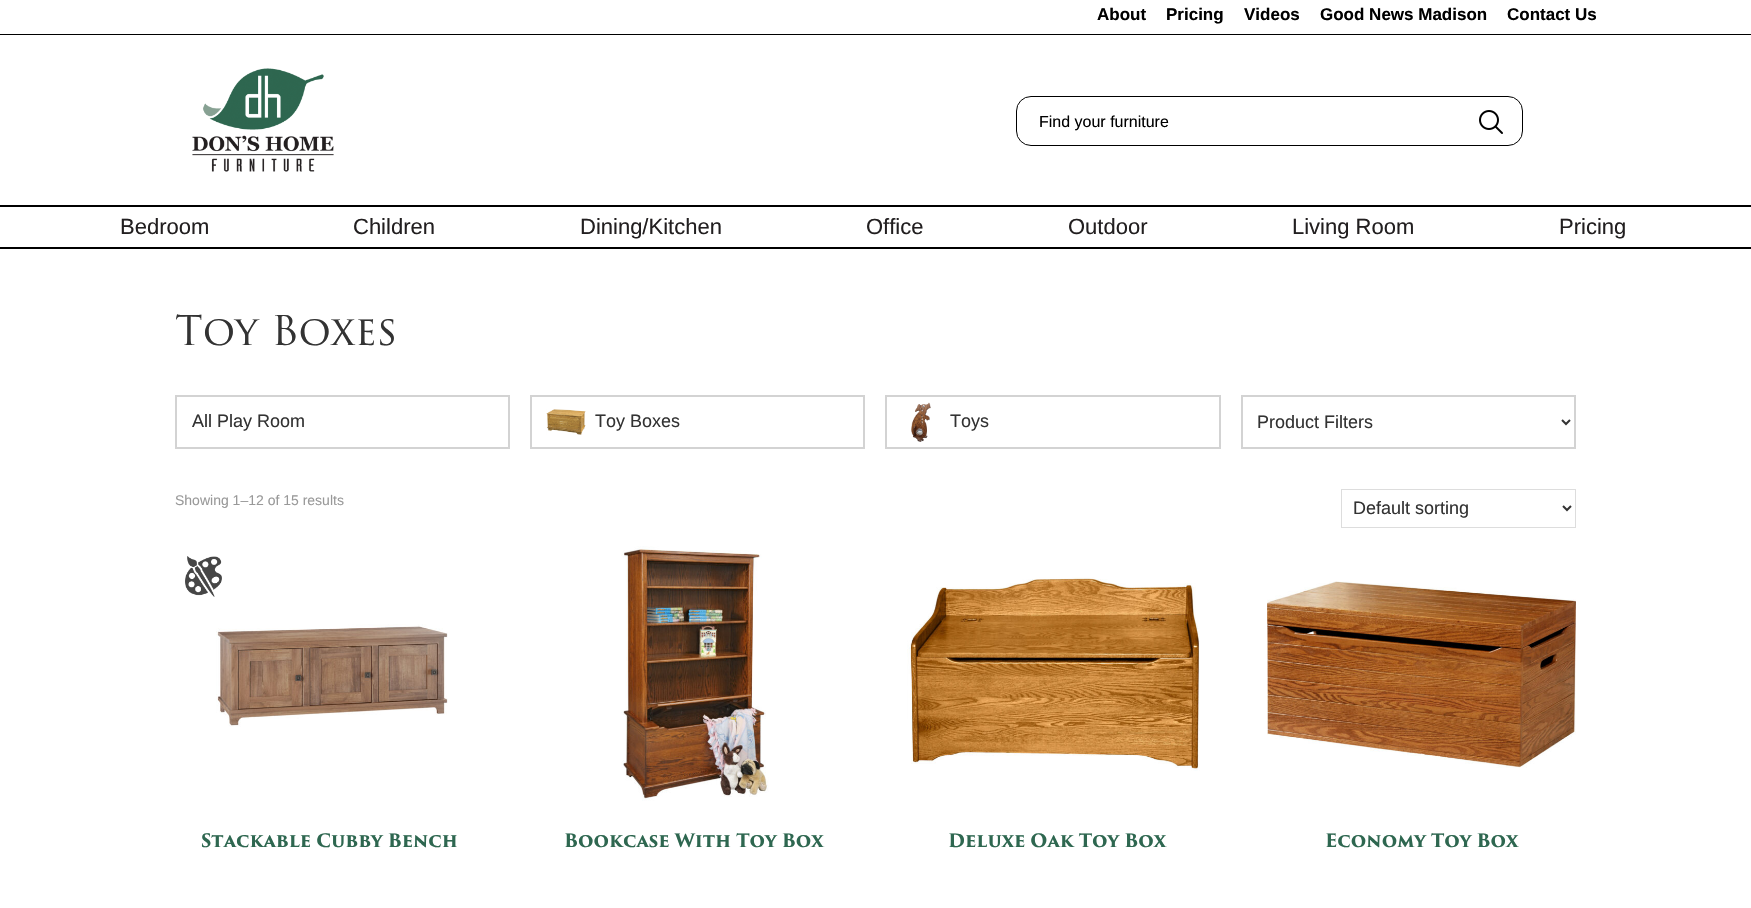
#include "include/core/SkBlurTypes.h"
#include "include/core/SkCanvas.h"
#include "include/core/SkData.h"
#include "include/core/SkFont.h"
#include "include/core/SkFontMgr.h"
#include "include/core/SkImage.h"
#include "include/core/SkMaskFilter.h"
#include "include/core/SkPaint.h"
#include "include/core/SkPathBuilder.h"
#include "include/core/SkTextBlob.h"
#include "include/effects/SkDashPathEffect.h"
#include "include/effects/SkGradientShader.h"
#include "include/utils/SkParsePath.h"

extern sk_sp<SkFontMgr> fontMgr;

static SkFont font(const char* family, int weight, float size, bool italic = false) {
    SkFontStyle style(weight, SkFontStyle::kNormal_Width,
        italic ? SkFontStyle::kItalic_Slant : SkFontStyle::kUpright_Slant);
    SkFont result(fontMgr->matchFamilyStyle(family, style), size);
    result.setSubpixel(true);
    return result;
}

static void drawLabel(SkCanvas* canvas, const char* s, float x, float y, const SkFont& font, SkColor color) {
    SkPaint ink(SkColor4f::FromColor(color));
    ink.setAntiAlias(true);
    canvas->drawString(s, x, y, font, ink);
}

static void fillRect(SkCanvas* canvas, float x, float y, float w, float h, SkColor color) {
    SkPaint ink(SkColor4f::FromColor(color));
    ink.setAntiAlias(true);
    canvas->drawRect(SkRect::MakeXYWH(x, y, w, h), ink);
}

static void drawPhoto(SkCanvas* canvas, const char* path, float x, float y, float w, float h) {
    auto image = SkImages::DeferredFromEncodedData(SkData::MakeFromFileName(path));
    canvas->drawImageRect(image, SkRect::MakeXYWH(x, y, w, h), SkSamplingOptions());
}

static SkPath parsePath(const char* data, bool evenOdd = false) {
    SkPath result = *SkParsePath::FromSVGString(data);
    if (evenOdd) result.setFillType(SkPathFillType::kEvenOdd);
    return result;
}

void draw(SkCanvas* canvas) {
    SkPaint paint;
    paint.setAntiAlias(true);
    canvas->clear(0xFFFFFFFF);
    fillRect(canvas, 0, 34, 1751, 1, 0xFF000000);
    SkFont font1 = font("Liberation Sans", 700, 17);
    drawLabel(canvas, "About", 1097, 20, font1, 0xFF000000);
    drawLabel(canvas, "Pricing", 1166, 20, font1, 0xFF000000);
    drawLabel(canvas, "Videos", 1244, 20, font1, 0xFF000000);
    drawLabel(canvas, "Good News Madison", 1320, 20, font1, 0xFF000000);
    drawLabel(canvas, "Contact Us", 1507, 20, font1, 0xFF000000);
    drawPhoto(canvas, "assets/img1.png", 192, 68, 142, 104);
    paint.setStroke(true);
    paint.setStrokeWidth(1);
    paint.setColor(0xFF000000);
    canvas->drawRoundRect(SkRect::MakeXYWH(1016.5f, 96.5f, 506, 49), 14.5f, 14.5f, paint);
    SkFont font2 = font("Liberation Sans", 400, 16);
    drawLabel(canvas, "Find your furniture", 1039, 127, font2, 0xFF000000);
    drawPhoto(canvas, "assets/img2.png", 1479, 110, 24, 24);
    fillRect(canvas, 0, 205, 1751, 2, 0xFF000000);
    fillRect(canvas, 0, 247, 1751, 2, 0xFF000000);
    SkFont font3 = font("Liberation Sans", 400, 22);
    drawLabel(canvas, "Bedroom", 120, 234, font3, 0xFF221F20);
    drawLabel(canvas, "Children", 353, 234, font3, 0xFF221F20);
    drawLabel(canvas, "Dining/Kitchen", 580, 234, font3, 0xFF221F20);
    drawLabel(canvas, "Office", 866, 234, font3, 0xFF221F20);
    drawLabel(canvas, "Outdoor", 1068, 234, font3, 0xFF221F20);
    drawLabel(canvas, "Living Room", 1292, 234, font3, 0xFF221F20);
    drawLabel(canvas, "Pricing", 1559, 234, font3, 0xFF221F20);
    SkFont font4 = font("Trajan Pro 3", 400, 40);
    drawLabel(canvas, "Toy Boxes", 175, 345, font4, 0xFF333333);
    paint.setStrokeWidth(2);
    paint.setColor(0xFFD3D3D3);
    canvas->drawRect(SkRect::MakeXYWH(176, 396, 333, 52), paint);
    SkFont font5 = font("Liberation Sans", 400, 18);
    drawLabel(canvas, "All Play Room", 192, 427, font5, 0xFF333333);
    canvas->drawRect(SkRect::MakeXYWH(531, 396, 333, 52), paint);
    drawPhoto(canvas, "assets/img3.png", 546, 409, 40, 26);
    drawLabel(canvas, "Toy Boxes", 595, 427, font5, 0xFF333333);
    canvas->drawRect(SkRect::MakeXYWH(886, 396, 334, 52), paint);
    drawPhoto(canvas, "assets/img4.png", 911, 402, 20, 40);
    drawLabel(canvas, "Toys", 950, 427, font5, 0xFF333333);
    canvas->drawRect(SkRect::MakeXYWH(1242, 396, 333, 52), paint);
    paint.setColor(0xFF333333);
    canvas->drawPath(parsePath("M1562 420L1566 424L1570 420"), paint);
    drawLabel(canvas, "Product Filters", 1257, 428, font5, 0xFF333333);
    SkFont font6 = font("Liberation Sans", 400, 14);
    drawLabel(canvas, "Showing 1–12 of 15 results", 175, 505, font6, 0xFF999999);
    paint.setStrokeWidth(1);
    paint.setColor(0xFFDDDDDD);
    canvas->drawRect(SkRect::MakeXYWH(1341.5f, 489.5f, 234, 38), paint);
    paint.setStrokeWidth(2);
    paint.setColor(0xFF333333);
    canvas->drawPath(parsePath("M1563 506L1567 510L1571 506"), paint);
    drawLabel(canvas, "Default sorting", 1353, 514, font5, 0xFF333333);
    drawPhoto(canvas, "assets/img5.png", 185, 556, 37, 41);
    drawPhoto(canvas, "assets/img6.png", 216, 624, 232, 103);
    SkFont font7 = font("Trajan Pro 3", 700, 18);
    drawLabel(canvas, "Stackable Cubby Bench", 201, 847, font7, 0xFF2E6750);
    drawPhoto(canvas, "assets/img7.png", 621, 546, 148, 255);
    drawLabel(canvas, "Bookcase With Toy Box", 564, 847, font7, 0xFF2E6750);
    drawPhoto(canvas, "assets/img8.png", 907, 577, 293, 194);
    drawLabel(canvas, "Deluxe Oak Toy Box", 948, 847, font7, 0xFF2E6750);
    drawPhoto(canvas, "assets/img9.png", 1267, 581, 309, 187);
    drawLabel(canvas, "Economy Toy Box", 1325, 847, font7, 0xFF2E6750);
}
